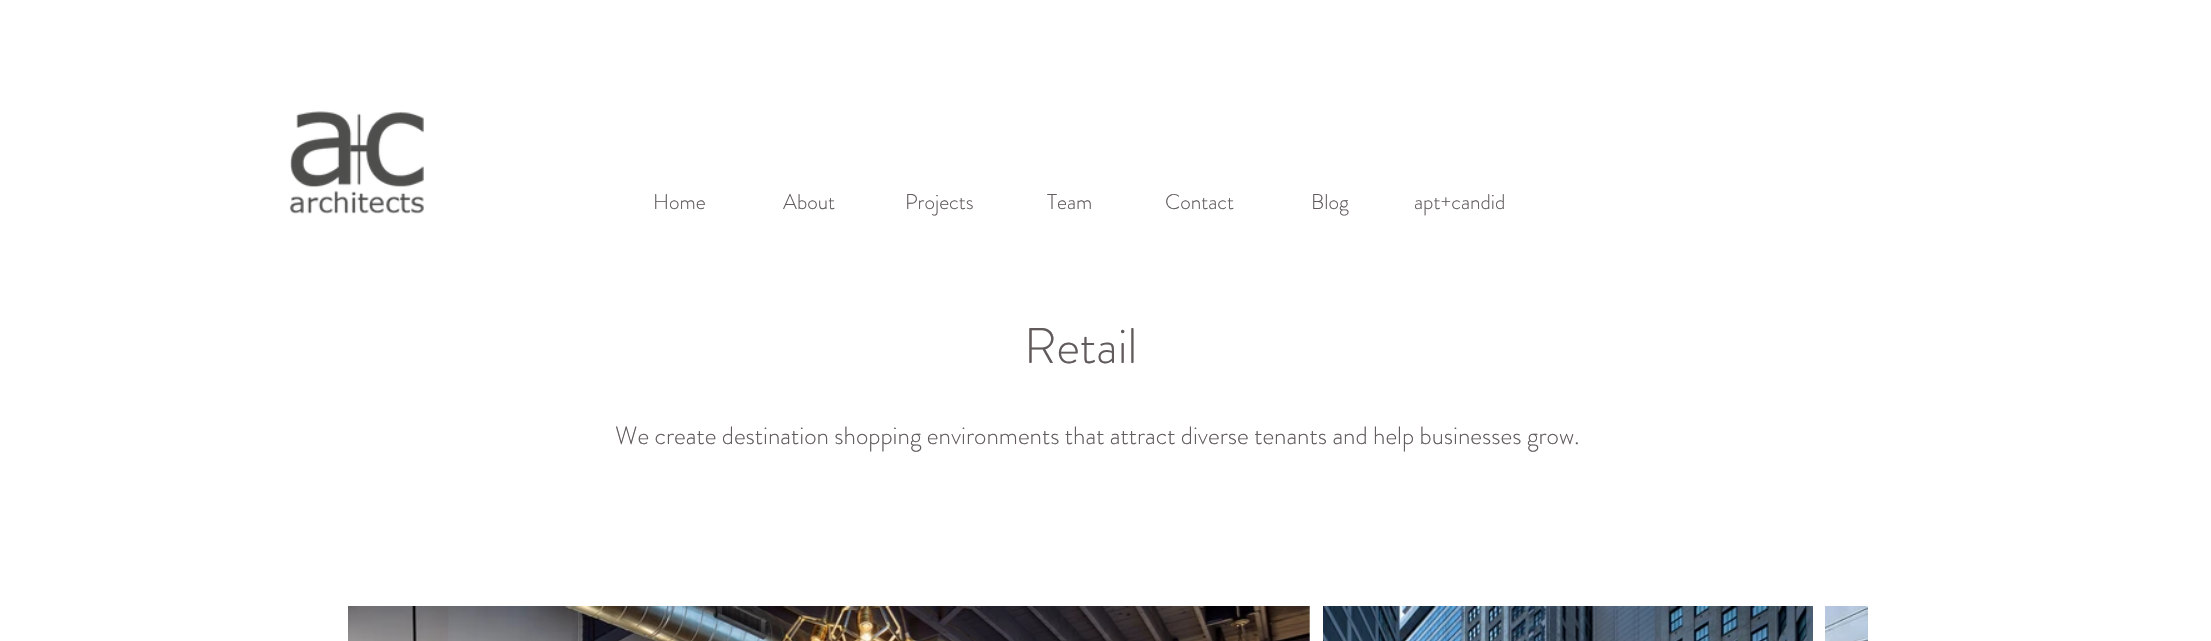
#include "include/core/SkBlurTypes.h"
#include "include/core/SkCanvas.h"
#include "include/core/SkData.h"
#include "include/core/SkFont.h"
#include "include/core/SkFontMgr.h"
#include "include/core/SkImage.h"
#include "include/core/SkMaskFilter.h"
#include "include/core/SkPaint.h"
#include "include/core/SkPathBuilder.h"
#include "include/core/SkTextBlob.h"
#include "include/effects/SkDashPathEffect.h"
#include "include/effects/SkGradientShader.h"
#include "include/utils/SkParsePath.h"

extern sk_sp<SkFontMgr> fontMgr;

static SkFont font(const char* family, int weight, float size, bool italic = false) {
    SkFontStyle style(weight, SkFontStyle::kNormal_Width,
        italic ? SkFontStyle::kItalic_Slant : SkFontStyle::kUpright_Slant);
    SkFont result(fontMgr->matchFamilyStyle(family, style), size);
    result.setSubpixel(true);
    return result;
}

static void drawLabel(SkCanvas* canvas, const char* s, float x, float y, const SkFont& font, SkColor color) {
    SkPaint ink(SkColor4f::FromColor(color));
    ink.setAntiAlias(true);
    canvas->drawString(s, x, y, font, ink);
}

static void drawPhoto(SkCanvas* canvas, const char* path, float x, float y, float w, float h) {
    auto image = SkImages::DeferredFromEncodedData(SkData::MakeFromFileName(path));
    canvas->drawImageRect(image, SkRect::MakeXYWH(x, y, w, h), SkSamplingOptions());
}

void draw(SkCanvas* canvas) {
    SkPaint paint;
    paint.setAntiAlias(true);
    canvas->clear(0xFFFFFFFF);
    drawPhoto(canvas, "assets/img1.png", 289, 111, 135, 103);
    SkFont font1 = font("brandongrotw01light", 300, 21.25f);
    drawLabel(canvas, "Home", 653, 209, font1, 0xFF615B5B);
    drawLabel(canvas, "About", 783, 209, font1, 0xFF615B5B);
    drawLabel(canvas, "Projects", 905, 209, font1, 0xFF615B5B);
    drawLabel(canvas, "Team", 1047, 209, font1, 0xFF615B5B);
    drawLabel(canvas, "Contact", 1165, 209, font1, 0xFF615B5B);
    drawLabel(canvas, "Blog", 1311, 209, font1, 0xFF615B5B);
    drawLabel(canvas, "apt+candid", 1414, 209, font1, 0xFF615B5B);
    SkFont font2 = font("brandongrotw01light", 300, 50);
    drawLabel(canvas, "Retail", 1024, 363, font2, 0xFF615B5B);
    SkFont font3 = font("brandongrotw01light", 300, 25);
    drawLabel(canvas, "We create destination shopping environments that attract diverse tenants and help businesses grow.", 615, 444, font3, 0xFF615B5B);
    drawPhoto(canvas, "assets/img2.png", 348, 606, 962, 35);
    drawPhoto(canvas, "assets/img3.png", 1323, 606, 490, 35);
    drawPhoto(canvas, "assets/img4.png", 1825, 606, 43, 35);
}
